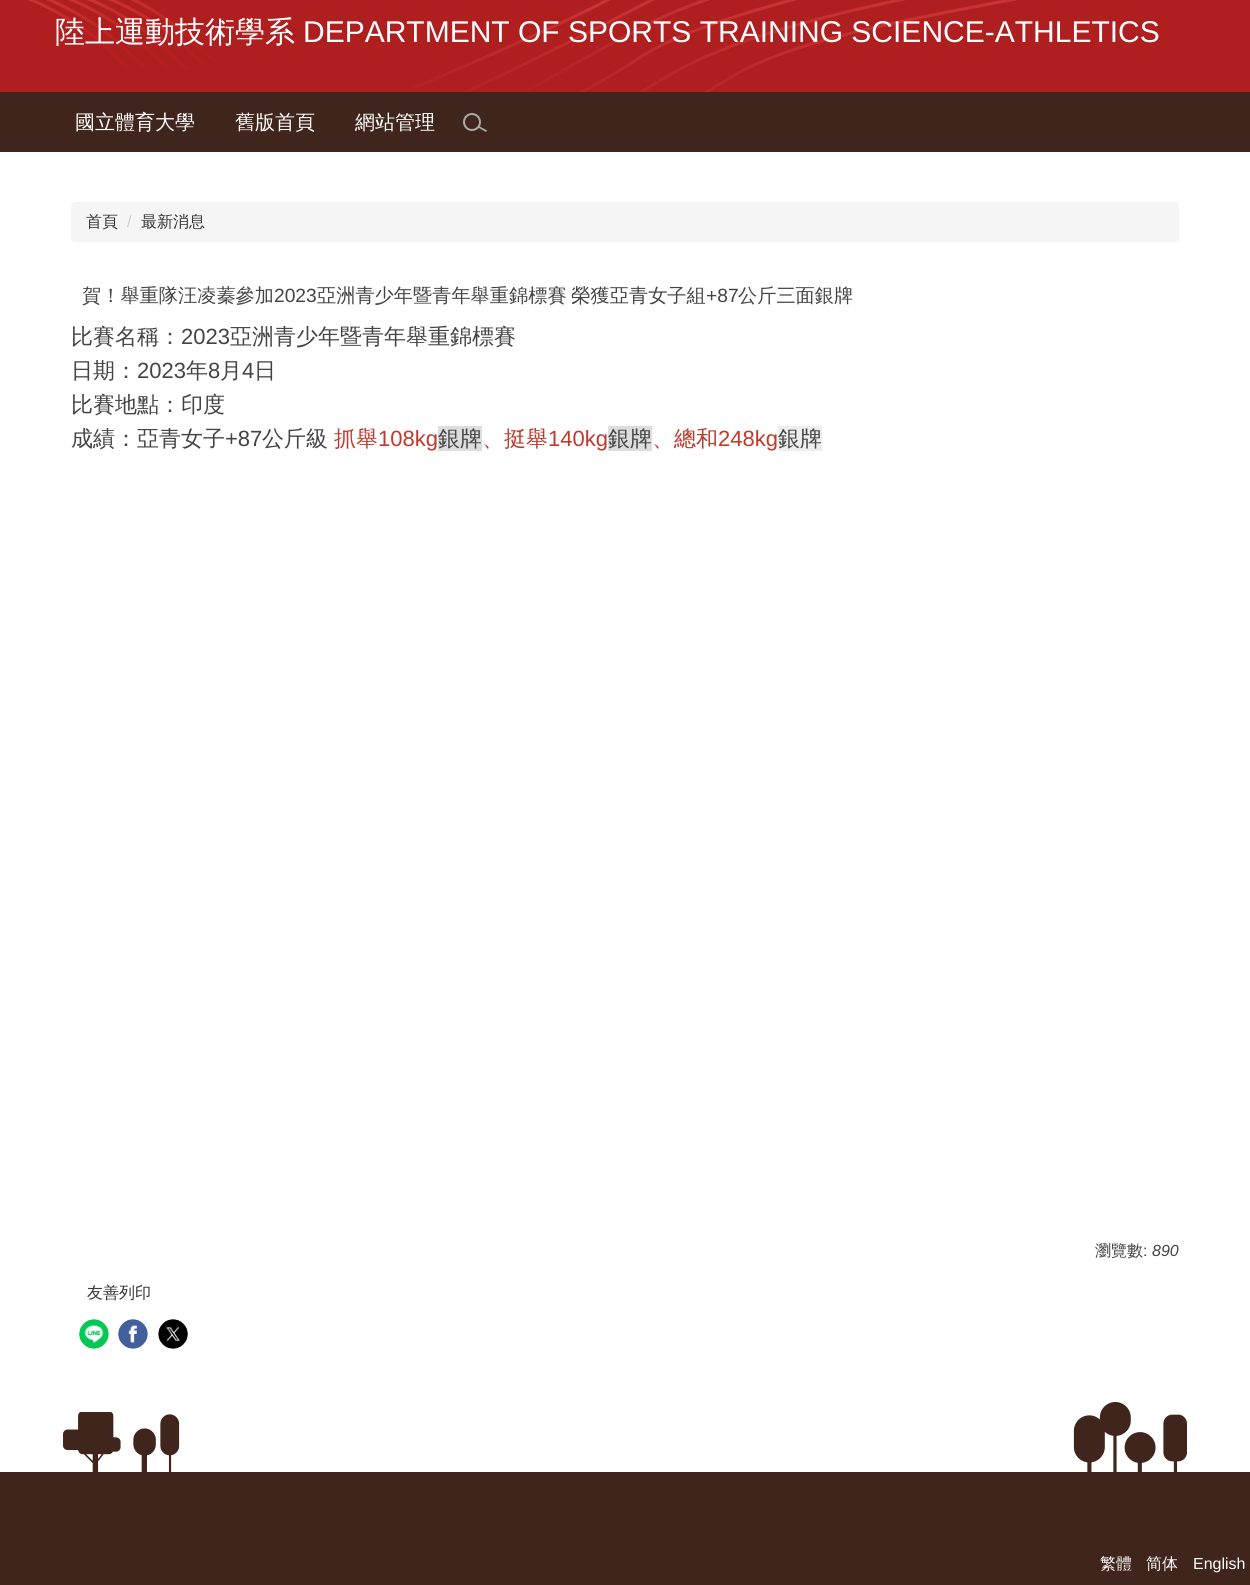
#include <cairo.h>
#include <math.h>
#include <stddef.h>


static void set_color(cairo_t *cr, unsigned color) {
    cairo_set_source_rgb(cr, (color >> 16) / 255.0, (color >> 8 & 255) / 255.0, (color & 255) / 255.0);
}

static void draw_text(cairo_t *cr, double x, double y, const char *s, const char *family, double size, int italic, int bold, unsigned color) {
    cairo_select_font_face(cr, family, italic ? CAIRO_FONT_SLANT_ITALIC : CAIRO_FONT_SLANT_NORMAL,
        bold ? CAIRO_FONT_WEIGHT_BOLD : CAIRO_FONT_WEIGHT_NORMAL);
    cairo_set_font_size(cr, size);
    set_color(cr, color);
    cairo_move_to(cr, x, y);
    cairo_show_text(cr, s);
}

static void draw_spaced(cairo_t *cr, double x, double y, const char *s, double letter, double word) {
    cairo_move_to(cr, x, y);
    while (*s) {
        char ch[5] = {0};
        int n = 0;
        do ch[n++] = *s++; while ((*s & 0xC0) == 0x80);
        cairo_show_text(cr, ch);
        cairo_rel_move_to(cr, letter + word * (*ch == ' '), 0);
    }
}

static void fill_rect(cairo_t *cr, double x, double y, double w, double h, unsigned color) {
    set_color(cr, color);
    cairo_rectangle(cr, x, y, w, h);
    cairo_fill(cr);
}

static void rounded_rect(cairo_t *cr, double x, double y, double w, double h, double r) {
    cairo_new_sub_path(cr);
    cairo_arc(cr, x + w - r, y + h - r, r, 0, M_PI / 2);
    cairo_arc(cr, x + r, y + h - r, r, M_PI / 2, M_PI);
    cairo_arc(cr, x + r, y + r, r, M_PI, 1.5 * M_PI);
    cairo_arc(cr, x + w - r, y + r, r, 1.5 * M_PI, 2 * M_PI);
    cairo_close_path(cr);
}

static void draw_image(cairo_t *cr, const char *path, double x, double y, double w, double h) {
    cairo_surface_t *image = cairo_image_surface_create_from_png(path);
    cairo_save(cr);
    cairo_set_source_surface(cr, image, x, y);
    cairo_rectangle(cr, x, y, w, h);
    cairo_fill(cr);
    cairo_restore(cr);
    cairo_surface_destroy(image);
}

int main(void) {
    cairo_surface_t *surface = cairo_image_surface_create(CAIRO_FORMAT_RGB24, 1250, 1585);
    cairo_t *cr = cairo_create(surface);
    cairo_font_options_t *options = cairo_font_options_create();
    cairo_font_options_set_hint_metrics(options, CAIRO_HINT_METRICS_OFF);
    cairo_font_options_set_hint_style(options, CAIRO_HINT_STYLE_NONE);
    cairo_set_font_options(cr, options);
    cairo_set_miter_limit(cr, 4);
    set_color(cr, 0xFFFFFF);
    cairo_paint(cr);
    fill_rect(cr, 0, 0, 1250, 92, 0xAF1F1F);
    draw_image(cr, "assets/img1.png", 28, 0, 188, 70);
    draw_image(cr, "assets/img2.png", 413, 0, 604, 92);
    draw_text(cr, 55, 42, "陸上運動技術學系", "WenQuanYi Zen Hei Medium", 30, 0, 0, 0xFFFFFF);
    draw_text(cr, 303, 42, "DEPARTMENT OF SPORTS TRAINING SCIENCE-ATHLETICS", "Liberation Sans", 30, 0, 0, 0xFFFFFF);
    fill_rect(cr, 0, 92, 1250, 60, 0x40251C);
    draw_text(cr, 75, 129, "國立體育大學", "WenQuanYi Zen Hei Medium", 20, 0, 0, 0xFFFFFF);
    draw_text(cr, 235, 129, "舊版首頁", "WenQuanYi Zen Hei Medium", 20, 0, 0, 0xFFFFFF);
    draw_text(cr, 355, 129, "網站管理", "WenQuanYi Zen Hei Medium", 20, 0, 0, 0xFFFFFF);
    cairo_new_path(cr);
    cairo_arc(cr, 472, 122, 8, 0, 2 * M_PI);
    set_color(cr, 0xAAAAAA);
    cairo_stroke(cr);
    cairo_new_path(cr);
    cairo_move_to(cr, 479, 126);
    cairo_line_to(cr, 487, 130.5);
    cairo_line_to(cr, 486, 132);
    cairo_line_to(cr, 478, 127.5);
    cairo_close_path(cr);
    cairo_fill(cr);
    set_color(cr, 0xF5F5F5);
    rounded_rect(cr, 71, 202, 1108, 40, 4);
    cairo_fill(cr);
    draw_text(cr, 86, 227, "首頁", "WenQuanYi Zen Hei Medium", 16, 0, 0, 0x333333);
    draw_text(cr, 127, 227, "/", "Liberation Sans", 16, 0, 0, 0xCCCCCC);
    draw_text(cr, 141, 227, "最新消息", "WenQuanYi Zen Hei Medium", 16, 0, 0, 0x333333);
    draw_text(cr, 82, 302, "賀！舉重隊汪凌蓁參加", "WenQuanYi Zen Hei Medium", 19.2, 0, 0, 0x444444);
    draw_text(cr, 274, 302, "2023", "Liberation Sans", 19.2, 0, 0, 0x444444);
    cairo_select_font_face(cr, "WenQuanYi Zen Hei Medium", CAIRO_FONT_SLANT_NORMAL, CAIRO_FONT_WEIGHT_NORMAL);
    draw_spaced(cr, 317, 302, "亞洲青少年暨青年舉重錦標賽 榮獲亞青女子組", 0, -1);
    draw_text(cr, 706, 302, "+87", "Liberation Sans", 19.2, 0, 0, 0x444444);
    draw_text(cr, 738, 302, "公斤三面銀牌", "WenQuanYi Zen Hei Medium", 19.2, 0, 0, 0x444444);
    draw_text(cr, 71, 344, "比賽名稱：", "WenQuanYi Zen Hei Medium", 22, 0, 0, 0x444444);
    draw_text(cr, 181, 344, "2023", "Liberation Sans", 22, 0, 0, 0x444444);
    draw_text(cr, 230, 344, "亞洲青少年暨青年舉重錦標賽", "WenQuanYi Zen Hei Medium", 22, 0, 0, 0x444444);
    draw_text(cr, 71, 378, "日期：", "WenQuanYi Zen Hei Medium", 22, 0, 0, 0x444444);
    draw_text(cr, 137, 378, "2023", "Liberation Sans", 22, 0, 0, 0x444444);
    draw_text(cr, 186, 378, "年", "WenQuanYi Zen Hei Medium", 22, 0, 0, 0x444444);
    draw_text(cr, 208, 378, "8", "Liberation Sans", 22, 0, 0, 0x444444);
    draw_text(cr, 220, 378, "月", "WenQuanYi Zen Hei Medium", 22, 0, 0, 0x444444);
    draw_text(cr, 242, 378, "4", "Liberation Sans", 22, 0, 0, 0x444444);
    draw_text(cr, 254, 378, "日", "WenQuanYi Zen Hei Medium", 22, 0, 0, 0x444444);
    draw_text(cr, 71, 412, "比賽地點：印度", "WenQuanYi Zen Hei Medium", 22, 0, 0, 0x444444);
    draw_text(cr, 71, 446, "成績：亞青女子", "WenQuanYi Zen Hei Medium", 22, 0, 0, 0x444444);
    draw_text(cr, 225, 446, "+87", "Liberation Sans", 22, 0, 0, 0x444444);
    draw_text(cr, 262, 446, "公斤級", "WenQuanYi Zen Hei Medium", 22, 0, 0, 0x444444);
    draw_text(cr, 334, 446, "抓舉", "WenQuanYi Zen Hei Medium", 22, 0, 0, 0xC0392B);
    draw_text(cr, 378, 446, "108kg", "Liberation Sans", 22, 0, 0, 0xC0392B);
    fill_rect(cr, 438, 426, 44, 25, 0xDDDDDD);
    draw_text(cr, 438, 446, "銀牌", "WenQuanYi Zen Hei Medium", 22, 0, 0, 0x444444);
    draw_text(cr, 482, 446, "、挺舉", "WenQuanYi Zen Hei Medium", 22, 0, 0, 0xC0392B);
    draw_text(cr, 548, 446, "140kg", "Liberation Sans", 22, 0, 0, 0xC0392B);
    fill_rect(cr, 608, 426, 44, 25, 0xDDDDDD);
    draw_text(cr, 608, 446, "銀牌", "WenQuanYi Zen Hei Medium", 22, 0, 0, 0x444444);
    draw_text(cr, 652, 446, "、總和", "WenQuanYi Zen Hei Medium", 22, 0, 0, 0xC0392B);
    draw_text(cr, 718, 446, "248kg", "Liberation Sans", 22, 0, 0, 0xC0392B);
    fill_rect(cr, 778, 426, 44, 25, 0xEEEEEE);
    draw_text(cr, 778, 446, "銀牌", "WenQuanYi Zen Hei Medium", 22, 0, 0, 0x444444);
    draw_text(cr, 1095, 1256, "瀏覽數", "WenQuanYi Zen Hei Medium", 16, 0, 0, 0x444444);
    draw_text(cr, 1143, 1256, ":", "Liberation Sans", 16, 0, 0, 0x444444);
    draw_text(cr, 1152, 1256, "890", "Liberation Sans", 16, 1, 0, 0x444444);
    draw_text(cr, 87, 1298, "友善列印", "WenQuanYi Zen Hei Medium", 16, 0, 0, 0x333333);
    draw_image(cr, "assets/img3.png", 79, 1319, 30, 30);
    draw_image(cr, "assets/img4.png", 118, 1319, 30, 30);
    draw_image(cr, "assets/img5.png", 158, 1319, 30, 30);
    fill_rect(cr, 0, 1472, 1250, 113, 0x40251C);
    draw_image(cr, "assets/img6.png", 63, 1412, 117, 60);
    draw_image(cr, "assets/img7.png", 1073, 1402, 114, 70);
    draw_text(cr, 1100, 1569, "繁體", "WenQuanYi Zen Hei Medium", 16, 0, 0, 0xFFFFFF);
    draw_text(cr, 1146, 1569, "简体", "WenQuanYi Zen Hei Medium", 16, 0, 0, 0xFFFFFF);
    draw_text(cr, 1193, 1569, "English", "Liberation Sans", 16, 0, 0, 0xFFFFFF);
    cairo_surface_write_to_png(surface, "output.png");
    cairo_font_options_destroy(options);
    cairo_destroy(cr);
    cairo_surface_destroy(surface);
    return 0;
}
